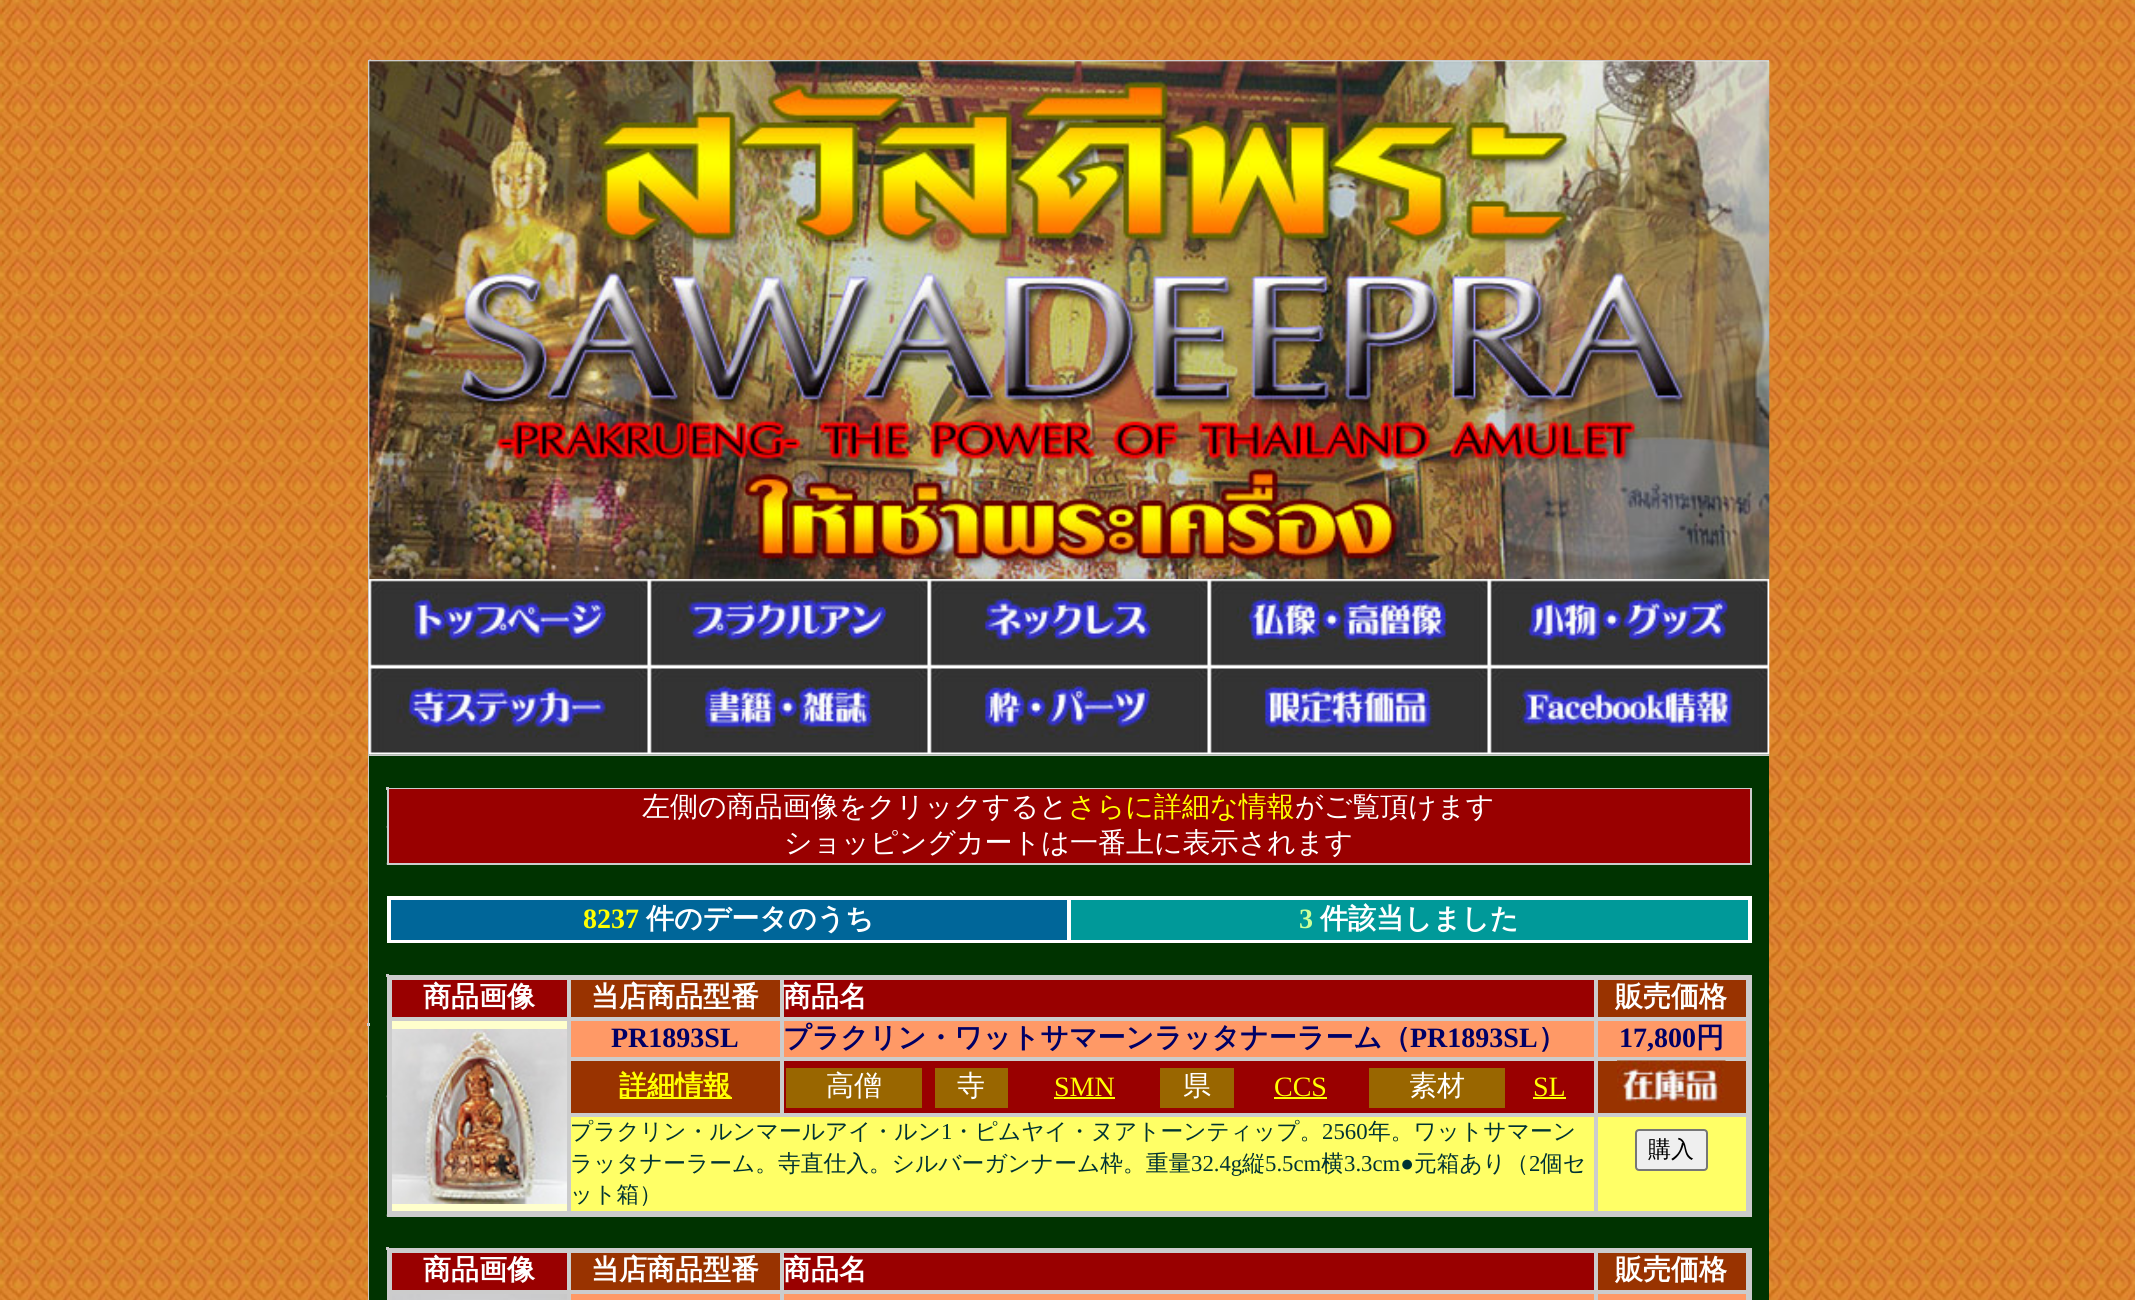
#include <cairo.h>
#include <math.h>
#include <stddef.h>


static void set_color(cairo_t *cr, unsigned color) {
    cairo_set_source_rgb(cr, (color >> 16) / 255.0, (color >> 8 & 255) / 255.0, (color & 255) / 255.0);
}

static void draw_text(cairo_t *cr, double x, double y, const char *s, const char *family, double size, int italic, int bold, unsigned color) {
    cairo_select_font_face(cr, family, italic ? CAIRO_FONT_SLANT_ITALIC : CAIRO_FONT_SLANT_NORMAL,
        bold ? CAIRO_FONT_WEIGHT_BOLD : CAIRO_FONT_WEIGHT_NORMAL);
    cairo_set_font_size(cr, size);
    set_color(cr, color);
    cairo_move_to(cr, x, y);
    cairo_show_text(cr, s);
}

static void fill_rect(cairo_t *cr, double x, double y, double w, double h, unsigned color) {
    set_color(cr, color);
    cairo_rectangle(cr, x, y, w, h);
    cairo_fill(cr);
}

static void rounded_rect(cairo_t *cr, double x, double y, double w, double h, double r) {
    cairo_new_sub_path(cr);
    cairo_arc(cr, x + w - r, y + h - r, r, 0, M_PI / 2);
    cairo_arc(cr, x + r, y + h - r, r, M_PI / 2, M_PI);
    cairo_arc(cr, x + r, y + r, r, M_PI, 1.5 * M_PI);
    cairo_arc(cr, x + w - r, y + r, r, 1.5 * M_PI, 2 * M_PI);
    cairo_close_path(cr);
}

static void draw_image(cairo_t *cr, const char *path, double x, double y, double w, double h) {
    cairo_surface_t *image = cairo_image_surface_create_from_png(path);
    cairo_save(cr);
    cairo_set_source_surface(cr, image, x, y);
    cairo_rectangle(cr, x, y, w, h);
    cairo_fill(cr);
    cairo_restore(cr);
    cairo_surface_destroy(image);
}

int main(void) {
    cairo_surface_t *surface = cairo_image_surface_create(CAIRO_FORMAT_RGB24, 2135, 1300);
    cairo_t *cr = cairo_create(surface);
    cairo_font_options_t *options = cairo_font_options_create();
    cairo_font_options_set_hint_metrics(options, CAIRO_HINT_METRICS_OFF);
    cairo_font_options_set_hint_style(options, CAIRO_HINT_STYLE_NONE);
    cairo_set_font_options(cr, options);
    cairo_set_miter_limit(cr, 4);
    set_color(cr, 0xFFFFFF);
    cairo_paint(cr);
    draw_image(cr, "assets/img1.png", 0, 0, 2135, 1300);
    fill_rect(cr, 368, 60, 1, 1240, 0xCCCCCC);
    fill_rect(cr, 369, 754, 1400, 546, 0x003300);
    fill_rect(cr, 367, 1023, 3, 3, 0xCCCCCC);
    fill_rect(cr, 369, 60, 1400, 1, 0xCCCCCC);
    fill_rect(cr, 369, 61, 1400, 693, 0xFFFFFF);
    draw_image(cr, "assets/img2.png", 369, 59, 2, 3);
    draw_image(cr, "assets/img3.png", 369, 61, 1401, 519);
    draw_image(cr, "assets/img4.png", 369, 579, 281, 87);
    draw_image(cr, "assets/img5.png", 649, 579, 281, 87);
    draw_image(cr, "assets/img6.png", 929, 579, 281, 87);
    draw_image(cr, "assets/img7.png", 1209, 579, 281, 87);
    draw_image(cr, "assets/img8.png", 1489, 579, 281, 88);
    draw_image(cr, "assets/img14.png", 369, 754, 1401, 2);
    draw_image(cr, "assets/img9.png", 369, 667, 281, 88);
    draw_image(cr, "assets/img10.png", 649, 667, 281, 88);
    draw_image(cr, "assets/img11.png", 929, 667, 281, 88);
    draw_image(cr, "assets/img12.png", 1209, 667, 281, 88);
    draw_image(cr, "assets/img13.png", 1489, 666, 281, 89);
    draw_image(cr, "assets/img15.png", 369, 754, 2, 2);
    fill_rect(cr, 387, 788, 1365, 1, 0xCCCCCC);
    fill_rect(cr, 387, 789, 2, 74, 0xCCCCCC);
    fill_rect(cr, 386, 787, 3, 3, 0xCCCCCC);
    draw_image(cr, "assets/img16.png", 386, 826, 1, 2);
    fill_rect(cr, 389, 789, 1361, 74, 0x990000);
    draw_text(cr, 642, 816, "左側の商品画像をクリックすると", "WenQuanYi Zen Hei Medium", 28, 0, 0, 0xFFFFFF);
    draw_text(cr, 1068, 816, "さらに詳細な情報", "WenQuanYi Zen Hei Medium", 28, 0, 0, 0xFFFF00);
    draw_text(cr, 1295, 816, "がご覧頂けます", "WenQuanYi Zen Hei Medium", 28, 0, 0, 0xFFFFFF);
    draw_text(cr, 784, 852, "ショッピングカートは一番上に表示されます", "WenQuanYi Zen Hei Medium", 28, 0, 0, 0xFFFFFF);
    fill_rect(cr, 1750, 789, 2, 74, 0xCCCCCC);
    fill_rect(cr, 387, 863, 1365, 2, 0xCCCCCC);
    draw_image(cr, "assets/img17.png", 386, 862, 1, 3);
    cairo_rectangle(cr, 388, 897, 1363, 45);
    set_color(cr, 0xFFFFFF);
    cairo_stroke(cr);
    set_color(cr, 0x006699);
    cairo_rectangle(cr, 390, 899, 678, 42);
    cairo_fill_preserve(cr);
    set_color(cr, 0xFFFFFF);
    cairo_stroke(cr);
    draw_text(cr, 583, 928, "8237", "Liberation Serif", 28, 0, 1, 0xFFFF00);
    draw_text(cr, 646, 928, "件のデータのうち", "WenQuanYi Zen Hei", 28, 0, 1, 0xFFFFFF);
    set_color(cr, 0x009999);
    cairo_rectangle(cr, 1070, 899, 679, 42);
    cairo_fill_preserve(cr);
    set_color(cr, 0xFFFFFF);
    cairo_stroke(cr);
    draw_text(cr, 1299, 928, "3", "Liberation Serif", 28, 0, 1, 0xCCFF99);
    draw_text(cr, 1320, 928, "件該当しました", "WenQuanYi Zen Hei", 28, 0, 1, 0xFFFFFF);
    fill_rect(cr, 387, 975, 1365, 2, 0xCCCCCC);
    fill_rect(cr, 386, 974, 3, 3, 0xCCCCCC);
    fill_rect(cr, 387, 977, 2, 238, 0xCCCCCC);
    draw_image(cr, "assets/img18.png", 386, 1095, 1, 3);
    cairo_rectangle(cr, 390, 978, 1359, 236);
    cairo_stroke(cr);
    set_color(cr, 0x990000);
    cairo_rectangle(cr, 391, 979, 177, 39);
    cairo_fill_preserve(cr);
    set_color(cr, 0xCCCCCC);
    cairo_stroke(cr);
    draw_text(cr, 423, 1006, "商品画像", "WenQuanYi Zen Hei", 28, 0, 1, 0xFFFFFF);
    set_color(cr, 0x993300);
    cairo_rectangle(cr, 570, 979, 211, 39);
    cairo_fill_preserve(cr);
    set_color(cr, 0xCCCCCC);
    cairo_stroke(cr);
    draw_text(cr, 591, 1006, "当店商品型番", "WenQuanYi Zen Hei", 28, 0, 1, 0xFFFFFF);
    set_color(cr, 0x990000);
    cairo_rectangle(cr, 783, 979, 812, 39);
    cairo_fill_preserve(cr);
    set_color(cr, 0xCCCCCC);
    cairo_stroke(cr);
    draw_text(cr, 783, 1006, "商品名", "WenQuanYi Zen Hei", 28, 0, 1, 0xFFFFFF);
    set_color(cr, 0x993300);
    cairo_rectangle(cr, 1597, 979, 150, 39);
    cairo_fill_preserve(cr);
    set_color(cr, 0xCCCCCC);
    cairo_stroke(cr);
    draw_text(cr, 1615, 1006, "販売価格", "WenQuanYi Zen Hei", 28, 0, 1, 0xFFFFFF);
    set_color(cr, 0xFFFFCC);
    cairo_rectangle(cr, 391, 1020, 177, 192);
    cairo_fill_preserve(cr);
    set_color(cr, 0xCCCCCC);
    cairo_stroke(cr);
    draw_image(cr, "assets/img19.png", 392, 1029, 175, 175);
    set_color(cr, 0xFF9966);
    cairo_rectangle(cr, 570, 1020, 211, 38);
    cairo_fill_preserve(cr);
    set_color(cr, 0xCCCCCC);
    cairo_stroke(cr);
    draw_text(cr, 611, 1047, "PR1893SL", "Liberation Serif", 28, 0, 1, 0x000066);
    set_color(cr, 0xFF9966);
    cairo_rectangle(cr, 783, 1020, 812, 38);
    cairo_fill_preserve(cr);
    set_color(cr, 0xCCCCCC);
    cairo_stroke(cr);
    draw_text(cr, 783, 1047, "プラクリン・ワットサマーンラッタナーラーム（", "WenQuanYi Zen Hei", 28, 0, 1, 0x000066);
    draw_text(cr, 1410, 1047, "PR1893SL", "Liberation Serif", 28, 0, 1, 0x000066);
    draw_text(cr, 1538, 1047, "）", "WenQuanYi Zen Hei", 28, 0, 1, 0x000066);
    set_color(cr, 0xFF9966);
    cairo_rectangle(cr, 1597, 1020, 150, 38);
    cairo_fill_preserve(cr);
    set_color(cr, 0xCCCCCC);
    cairo_stroke(cr);
    draw_text(cr, 1619, 1047, "17,800", "Liberation Serif", 28, 0, 1, 0x000066);
    draw_text(cr, 1696, 1047, "円", "WenQuanYi Zen Hei", 28, 0, 1, 0x000066);
    set_color(cr, 0x993300);
    cairo_rectangle(cr, 570, 1060, 211, 54);
    cairo_fill_preserve(cr);
    set_color(cr, 0xCCCCCC);
    cairo_stroke(cr);
    fill_rect(cr, 620, 1097, 112, 2, 0xFFFF00);
    draw_text(cr, 619, 1095, "詳細情報", "WenQuanYi Zen Hei", 28, 0, 1, 0xFFFF00);
    set_color(cr, 0x990000);
    cairo_rectangle(cr, 783, 1060, 812, 54);
    cairo_fill_preserve(cr);
    set_color(cr, 0xCCCCCC);
    cairo_stroke(cr);
    fill_rect(cr, 786, 1068, 136, 40, 0x996600);
    draw_text(cr, 826, 1095, "高僧", "WenQuanYi Zen Hei Medium", 28, 0, 0, 0xFFFFFF);
    fill_rect(cr, 935, 1068, 73, 40, 0x996600);
    draw_text(cr, 957, 1095, "寺", "WenQuanYi Zen Hei Medium", 28, 0, 0, 0xFFFFFF);
    draw_text(cr, 1054, 1096, "SMN", "Liberation Serif", 28, 0, 0, 0xFFFF00);
    fill_rect(cr, 1054, 1097, 61, 2, 0xFFFF00);
    fill_rect(cr, 1160, 1068, 74, 40, 0x996600);
    draw_text(cr, 1183, 1095, "県", "WenQuanYi Zen Hei Medium", 28, 0, 0, 0xFFFFFF);
    draw_text(cr, 1274, 1096, "CCS", "Liberation Serif", 28, 0, 0, 0xFFFF00);
    fill_rect(cr, 1274, 1097, 53, 2, 0xFFFF00);
    fill_rect(cr, 1369, 1068, 136, 40, 0x996600);
    draw_text(cr, 1409, 1095, "素材", "WenQuanYi Zen Hei Medium", 28, 0, 0, 0xFFFFFF);
    draw_text(cr, 1533, 1096, "SL", "Liberation Serif", 28, 0, 0, 0xFFFF00);
    fill_rect(cr, 1533, 1097, 33, 2, 0xFFFF00);
    set_color(cr, 0x993300);
    cairo_rectangle(cr, 1597, 1060, 150, 54);
    cairo_fill_preserve(cr);
    set_color(cr, 0xCCCCCC);
    cairo_stroke(cr);
    draw_image(cr, "assets/img20.png", 1617, 1060, 109, 43);
    set_color(cr, 0xFFFF66);
    cairo_rectangle(cr, 570, 1116, 1025, 96);
    cairo_fill_preserve(cr);
    set_color(cr, 0xCCCCCC);
    cairo_stroke(cr);
    draw_text(cr, 570, 1139, "プラクリン・ルンマールアイ・ルン", "WenQuanYi Zen Hei Medium", 22.75, 0, 0, 0x003333);
    draw_text(cr, 941, 1139, "1", "Liberation Serif", 22.75, 0, 0, 0x003333);
    draw_text(cr, 952, 1139, "・ピムヤイ・ヌアトーンティップ。", "WenQuanYi Zen Hei Medium", 22.75, 0, 0, 0x003333);
    draw_text(cr, 1322, 1139, "2560", "Liberation Serif", 22.75, 0, 0, 0x003333);
    draw_text(cr, 1368, 1139, "年。ワットサマーン", "WenQuanYi Zen Hei Medium", 22.75, 0, 0, 0x003333);
    draw_text(cr, 570, 1171, "ラッタナーラーム。寺直仕入。シルバーガンナーム枠。重量", "WenQuanYi Zen Hei Medium", 22.75, 0, 0, 0x003333);
    draw_text(cr, 1191, 1171, "32.4g", "Liberation Serif", 22.75, 0, 0, 0x003333);
    draw_text(cr, 1242, 1171, "縦", "WenQuanYi Zen Hei Medium", 22.75, 0, 0, 0x003333);
    draw_text(cr, 1265, 1171, "5.5cm", "Liberation Serif", 22.75, 0, 0, 0x003333);
    draw_text(cr, 1321, 1171, "横", "WenQuanYi Zen Hei Medium", 22.75, 0, 0, 0x003333);
    draw_text(cr, 1344, 1171, "3.3cm●", "Liberation Serif", 22.75, 0, 0, 0x003333);
    draw_text(cr, 1414, 1171, "元箱あり（", "WenQuanYi Zen Hei Medium", 22.75, 0, 0, 0x003333);
    draw_text(cr, 1529, 1171, "2", "Liberation Serif", 22.75, 0, 0, 0x003333);
    draw_text(cr, 1540, 1171, "個セ", "WenQuanYi Zen Hei Medium", 22.75, 0, 0, 0x003333);
    draw_text(cr, 570, 1202, "ット箱）", "WenQuanYi Zen Hei Medium", 22.75, 0, 0, 0x003333);
    set_color(cr, 0xFFFF66);
    cairo_rectangle(cr, 1597, 1116, 150, 96);
    cairo_fill_preserve(cr);
    set_color(cr, 0xCCCCCC);
    cairo_stroke(cr);
    set_color(cr, 0xEFEFEF);
    rounded_rect(cr, 1636, 1130, 71, 40, 3);
    cairo_fill_preserve(cr);
    set_color(cr, 0x767676);
    cairo_stroke(cr);
    draw_text(cr, 1648, 1157, "購入", "WenQuanYi Zen Hei Medium", 23, 0, 0, 0x000000);
    fill_rect(cr, 1750, 977, 2, 238, 0xCCCCCC);
    fill_rect(cr, 387, 1215, 1365, 2, 0xCCCCCC);
    draw_image(cr, "assets/img18.png", 386, 1214, 1, 3);
    fill_rect(cr, 387, 1248, 1365, 2, 0xCCCCCC);
    fill_rect(cr, 386, 1247, 3, 3, 0xCCCCCC);
    fill_rect(cr, 387, 1250, 2, 50, 0xCCCCCC);
    cairo_rectangle(cr, 390, 1251, 1359, 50);
    cairo_stroke(cr);
    set_color(cr, 0x990000);
    cairo_rectangle(cr, 391, 1252, 177, 39);
    cairo_fill_preserve(cr);
    set_color(cr, 0xCCCCCC);
    cairo_stroke(cr);
    draw_text(cr, 423, 1279, "商品画像", "WenQuanYi Zen Hei", 28, 0, 1, 0xFFFFFF);
    set_color(cr, 0x993300);
    cairo_rectangle(cr, 570, 1252, 211, 39);
    cairo_fill_preserve(cr);
    set_color(cr, 0xCCCCCC);
    cairo_stroke(cr);
    draw_text(cr, 591, 1279, "当店商品型番", "WenQuanYi Zen Hei", 28, 0, 1, 0xFFFFFF);
    set_color(cr, 0x990000);
    cairo_rectangle(cr, 783, 1252, 812, 39);
    cairo_fill_preserve(cr);
    set_color(cr, 0xCCCCCC);
    cairo_stroke(cr);
    draw_text(cr, 783, 1279, "商品名", "WenQuanYi Zen Hei", 28, 0, 1, 0xFFFFFF);
    set_color(cr, 0x993300);
    cairo_rectangle(cr, 1597, 1252, 150, 39);
    cairo_fill_preserve(cr);
    set_color(cr, 0xCCCCCC);
    cairo_stroke(cr);
    draw_text(cr, 1615, 1279, "販売価格", "WenQuanYi Zen Hei", 28, 0, 1, 0xFFFFFF);
    cairo_rectangle(cr, 391, 1293, 177, 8);
    set_color(cr, 0xCCCCCC);
    cairo_stroke(cr);
    draw_image(cr, "assets/img21.png", 392, 1294, 175, 6);
    set_color(cr, 0xFF9966);
    cairo_rectangle(cr, 570, 1293, 211, 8);
    cairo_fill_preserve(cr);
    set_color(cr, 0xCCCCCC);
    cairo_stroke(cr);
    set_color(cr, 0xFF9966);
    cairo_rectangle(cr, 783, 1293, 812, 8);
    cairo_fill_preserve(cr);
    set_color(cr, 0xCCCCCC);
    cairo_stroke(cr);
    set_color(cr, 0xFF9966);
    cairo_rectangle(cr, 1597, 1293, 150, 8);
    cairo_fill_preserve(cr);
    set_color(cr, 0xCCCCCC);
    cairo_stroke(cr);
    fill_rect(cr, 1750, 1250, 2, 50, 0xCCCCCC);
    cairo_surface_write_to_png(surface, "output.png");
    cairo_font_options_destroy(options);
    cairo_destroy(cr);
    cairo_surface_destroy(surface);
    return 0;
}
